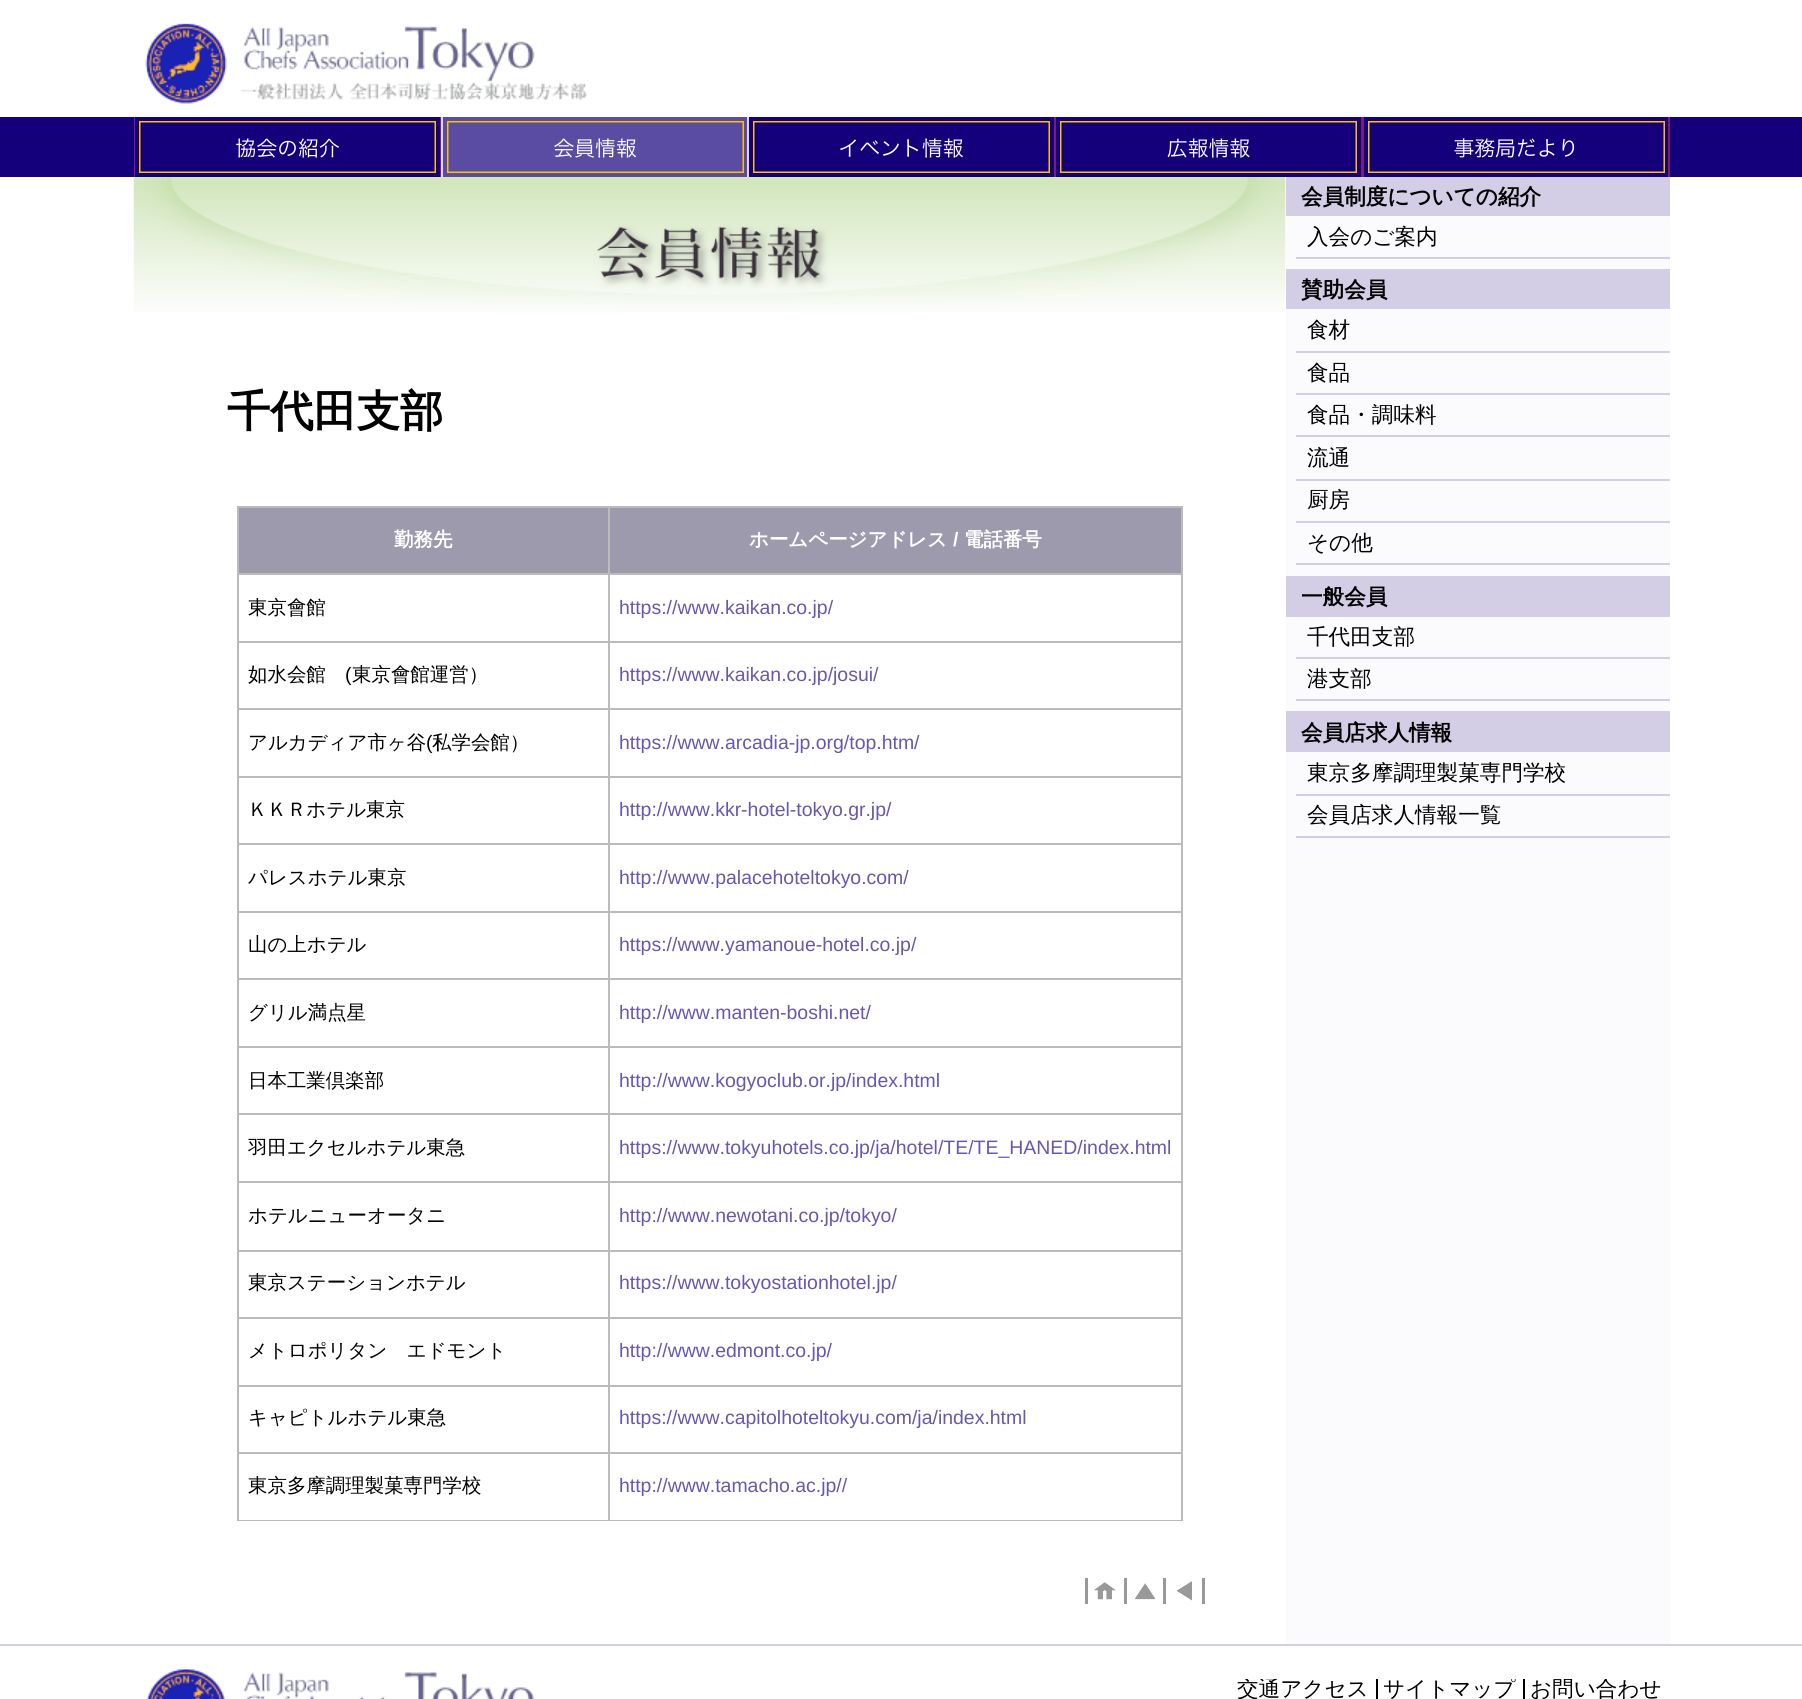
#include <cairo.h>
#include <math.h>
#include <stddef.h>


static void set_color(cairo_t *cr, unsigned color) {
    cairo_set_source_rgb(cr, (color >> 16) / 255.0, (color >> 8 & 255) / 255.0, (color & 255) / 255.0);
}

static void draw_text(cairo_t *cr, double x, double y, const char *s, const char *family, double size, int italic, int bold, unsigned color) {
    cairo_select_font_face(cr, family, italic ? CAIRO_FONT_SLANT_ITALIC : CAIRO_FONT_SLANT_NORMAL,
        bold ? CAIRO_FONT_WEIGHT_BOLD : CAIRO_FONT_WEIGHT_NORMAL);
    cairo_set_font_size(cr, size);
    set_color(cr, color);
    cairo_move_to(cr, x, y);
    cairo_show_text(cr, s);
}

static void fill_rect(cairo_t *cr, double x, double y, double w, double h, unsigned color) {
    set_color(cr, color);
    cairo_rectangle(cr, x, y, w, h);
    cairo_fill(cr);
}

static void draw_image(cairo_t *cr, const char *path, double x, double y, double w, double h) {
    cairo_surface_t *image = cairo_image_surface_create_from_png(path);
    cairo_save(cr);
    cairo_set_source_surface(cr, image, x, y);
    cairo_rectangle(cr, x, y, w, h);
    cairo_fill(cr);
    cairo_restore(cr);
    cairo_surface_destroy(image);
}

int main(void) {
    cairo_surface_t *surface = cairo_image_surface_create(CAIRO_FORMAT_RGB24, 1802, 1699);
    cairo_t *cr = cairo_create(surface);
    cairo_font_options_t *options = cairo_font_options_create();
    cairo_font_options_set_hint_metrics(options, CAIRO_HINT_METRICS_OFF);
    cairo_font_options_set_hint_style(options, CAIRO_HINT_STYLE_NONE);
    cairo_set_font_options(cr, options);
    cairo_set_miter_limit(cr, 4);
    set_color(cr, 0xFFFFFF);
    cairo_paint(cr);
    draw_image(cr, "assets/img1.png", 145, 23, 442, 81);
    fill_rect(cr, 0, 117, 1802, 60, 0x15007C);
    fill_rect(cr, 134, 117, 307, 60, 0x7E1A78);
    draw_image(cr, "assets/img2.png", 135, 117, 305, 60);
    fill_rect(cr, 441, 117, 308, 60, 0xE5D2EC);
    draw_image(cr, "assets/img3.png", 443, 117, 304, 60);
    fill_rect(cr, 1054, 117, 616, 60, 0x7E1A78);
    draw_image(cr, "assets/img4.png", 749, 117, 305, 60);
    draw_image(cr, "assets/img5.png", 1056, 117, 305, 60);
    draw_image(cr, "assets/img6.png", 1364, 117, 304, 60);
    draw_image(cr, "assets/img7.png", 133, 177, 1153, 135);
    draw_text(cr, 227, 426, "千代田支部", "WenQuanYi Zen Hei", 43.25, 0, 1, 0x000000);
    fill_rect(cr, 237, 506, 945, 2, 0xBBBBBB);
    fill_rect(cr, 1181, 506, 2, 1015, 0xBBBBBB);
    fill_rect(cr, 237, 1520, 945, 1, 0xBBBBBB);
    fill_rect(cr, 237, 506, 2, 1015, 0xBBBBBB);
    fill_rect(cr, 239, 508, 369, 65, 0x9E9AAD);
    draw_text(cr, 394, 546, "勤務先", "WenQuanYi Zen Hei", 19.45, 0, 1, 0xFFFFFF);
    fill_rect(cr, 610, 508, 571, 65, 0x9E9AAD);
    fill_rect(cr, 608, 573, 574, 2, 0xBBBBBB);
    fill_rect(cr, 608, 641, 574, 2, 0xBBBBBB);
    fill_rect(cr, 608, 708, 574, 2, 0xBBBBBB);
    fill_rect(cr, 608, 776, 574, 2, 0xBBBBBB);
    fill_rect(cr, 608, 843, 574, 2, 0xBBBBBB);
    fill_rect(cr, 608, 911, 574, 2, 0xBBBBBB);
    fill_rect(cr, 608, 978, 574, 2, 0xBBBBBB);
    fill_rect(cr, 608, 1046, 574, 2, 0xBBBBBB);
    fill_rect(cr, 608, 1113, 574, 2, 0xBBBBBB);
    fill_rect(cr, 608, 1181, 574, 2, 0xBBBBBB);
    fill_rect(cr, 608, 1250, 574, 2, 0xBBBBBB);
    fill_rect(cr, 608, 1317, 574, 2, 0xBBBBBB);
    fill_rect(cr, 608, 1385, 574, 2, 0xBBBBBB);
    fill_rect(cr, 608, 1452, 574, 2, 0xBBBBBB);
    fill_rect(cr, 608, 1452, 2, 69, 0xBBBBBB);
    fill_rect(cr, 237, 1452, 372, 2, 0xBBBBBB);
    fill_rect(cr, 608, 1385, 2, 69, 0xBBBBBB);
    fill_rect(cr, 237, 1385, 372, 2, 0xBBBBBB);
    fill_rect(cr, 608, 1317, 2, 69, 0xBBBBBB);
    fill_rect(cr, 237, 1317, 372, 2, 0xBBBBBB);
    fill_rect(cr, 608, 1250, 2, 69, 0xBBBBBB);
    fill_rect(cr, 237, 1250, 372, 2, 0xBBBBBB);
    fill_rect(cr, 608, 1181, 2, 70, 0xBBBBBB);
    fill_rect(cr, 237, 1181, 372, 2, 0xBBBBBB);
    fill_rect(cr, 608, 1113, 2, 69, 0xBBBBBB);
    fill_rect(cr, 237, 1113, 372, 2, 0xBBBBBB);
    fill_rect(cr, 608, 1046, 2, 69, 0xBBBBBB);
    fill_rect(cr, 237, 1046, 372, 2, 0xBBBBBB);
    fill_rect(cr, 608, 978, 2, 69, 0xBBBBBB);
    fill_rect(cr, 237, 978, 372, 2, 0xBBBBBB);
    fill_rect(cr, 608, 911, 2, 69, 0xBBBBBB);
    fill_rect(cr, 237, 911, 372, 2, 0xBBBBBB);
    fill_rect(cr, 608, 843, 2, 69, 0xBBBBBB);
    fill_rect(cr, 237, 843, 372, 2, 0xBBBBBB);
    fill_rect(cr, 608, 776, 2, 69, 0xBBBBBB);
    fill_rect(cr, 237, 776, 372, 2, 0xBBBBBB);
    fill_rect(cr, 608, 708, 2, 69, 0xBBBBBB);
    fill_rect(cr, 237, 708, 372, 2, 0xBBBBBB);
    fill_rect(cr, 608, 641, 2, 69, 0xBBBBBB);
    fill_rect(cr, 237, 641, 372, 2, 0xBBBBBB);
    fill_rect(cr, 608, 573, 2, 69, 0xBBBBBB);
    fill_rect(cr, 237, 573, 372, 2, 0xBBBBBB);
    fill_rect(cr, 608, 506, 2, 69, 0xBBBBBB);
    draw_text(cr, 749, 546, "ホームページアドレス", "WenQuanYi Zen Hei", 19.45, 0, 1, 0xFFFFFF);
    draw_text(cr, 953, 546, "/", "Liberation Sans", 19.45, 0, 1, 0xFFFFFF);
    draw_text(cr, 964, 546, "電話番号", "WenQuanYi Zen Hei", 19.45, 0, 1, 0xFFFFFF);
    draw_text(cr, 248, 614, "東京會館", "WenQuanYi Zen Hei Medium", 19.45, 0, 0, 0x000000);
    draw_text(cr, 619, 614, "https://www.kaikan.co.jp/", "Liberation Sans", 19.45, 0, 0, 0x6658AD);
    draw_text(cr, 248, 681, "如水会館", "WenQuanYi Zen Hei Medium", 19.45, 0, 0, 0x000000);
    draw_text(cr, 345, 681, "(", "Liberation Sans", 19.45, 0, 0, 0x000000);
    draw_text(cr, 352, 681, "東京會館運営）", "WenQuanYi Zen Hei Medium", 19.45, 0, 0, 0x000000);
    draw_text(cr, 619, 681, "https://www.kaikan.co.jp/josui/", "Liberation Sans", 19.45, 0, 0, 0x6658AD);
    draw_text(cr, 248, 749, "アルカディア市ヶ谷", "WenQuanYi Zen Hei Medium", 19.45, 0, 0, 0x000000);
    draw_text(cr, 426, 749, "(", "Liberation Sans", 19.45, 0, 0, 0x000000);
    draw_text(cr, 432, 749, "私学会館）", "WenQuanYi Zen Hei Medium", 19.45, 0, 0, 0x000000);
    draw_text(cr, 619, 749, "https://www.arcadia-jp.org/top.htm/", "Liberation Sans", 19.45, 0, 0, 0x6658AD);
    draw_text(cr, 248, 816, "ＫＫＲホテル東京", "WenQuanYi Zen Hei Medium", 19.45, 0, 0, 0x000000);
    draw_text(cr, 619, 816, "http://www.kkr-hotel-tokyo.gr.jp/", "Liberation Sans", 19.45, 0, 0, 0x6658AD);
    draw_text(cr, 248, 884, "パレスホテル東京", "WenQuanYi Zen Hei Medium", 19.45, 0, 0, 0x000000);
    draw_text(cr, 619, 884, "http://www.palacehoteltokyo.com/", "Liberation Sans", 19.45, 0, 0, 0x6658AD);
    draw_text(cr, 248, 951, "山の上ホテル", "WenQuanYi Zen Hei Medium", 19.45, 0, 0, 0x000000);
    draw_text(cr, 619, 951, "https://www.yamanoue-hotel.co.jp/", "Liberation Sans", 19.45, 0, 0, 0x6658AD);
    draw_text(cr, 248, 1019, "グリル満点星", "WenQuanYi Zen Hei Medium", 19.45, 0, 0, 0x000000);
    draw_text(cr, 619, 1019, "http://www.manten-boshi.net/", "Liberation Sans", 19.45, 0, 0, 0x6658AD);
    draw_text(cr, 248, 1087, "日本工業倶楽部", "WenQuanYi Zen Hei Medium", 19.45, 0, 0, 0x000000);
    draw_text(cr, 619, 1087, "http://www.kogyoclub.or.jp/index.html", "Liberation Sans", 19.45, 0, 0, 0x6658AD);
    draw_text(cr, 248, 1154, "羽田エクセルホテル東急", "WenQuanYi Zen Hei Medium", 19.45, 0, 0, 0x000000);
    draw_text(cr, 619, 1154, "https://www.tokyuhotels.co.jp/ja/hotel/TE/TE_HANED/index.html", "Liberation Sans", 19.45, 0, 0, 0x6658AD);
    draw_text(cr, 248, 1222, "ホテルニューオータニ", "WenQuanYi Zen Hei Medium", 19.45, 0, 0, 0x000000);
    draw_text(cr, 619, 1222, "http://www.newotani.co.jp/tokyo/", "Liberation Sans", 19.45, 0, 0, 0x6658AD);
    draw_text(cr, 248, 1289, "東京ステーションホテル", "WenQuanYi Zen Hei Medium", 19.45, 0, 0, 0x000000);
    draw_text(cr, 619, 1289, "https://www.tokyostationhotel.jp/", "Liberation Sans", 19.45, 0, 0, 0x6658AD);
    draw_text(cr, 248, 1357, "メトロポリタン　エドモント", "WenQuanYi Zen Hei Medium", 19.45, 0, 0, 0x000000);
    draw_text(cr, 619, 1357, "http://www.edmont.co.jp/", "Liberation Sans", 19.45, 0, 0, 0x6658AD);
    draw_text(cr, 248, 1424, "キャピトルホテル東急", "WenQuanYi Zen Hei Medium", 19.45, 0, 0, 0x000000);
    draw_text(cr, 619, 1424, "https://www.capitolhoteltokyu.com/ja/index.html", "Liberation Sans", 19.45, 0, 0, 0x6658AD);
    draw_text(cr, 248, 1492, "東京多摩調理製菓専門学校", "WenQuanYi Zen Hei Medium", 19.45, 0, 0, 0x000000);
    draw_text(cr, 619, 1492, "http://www.tamacho.ac.jp//", "Liberation Sans", 19.45, 0, 0, 0x6658AD);
    fill_rect(cr, 1124, 1578, 3, 26, 0x999999);
    fill_rect(cr, 1085, 1578, 3, 26, 0x999999);
    draw_image(cr, "assets/img8.png", 1093, 1582, 23, 18);
    fill_rect(cr, 1163, 1578, 3, 26, 0x999999);
    draw_image(cr, "assets/img9.png", 1134, 1583, 22, 17);
    fill_rect(cr, 1202, 1578, 3, 26, 0x999999);
    draw_image(cr, "assets/img10.png", 1176, 1581, 16, 20);
    fill_rect(cr, 1286, 216, 384, 1428, 0xFBFAFD);
    fill_rect(cr, 1286, 177, 384, 39, 0xD3CDE6);
    draw_text(cr, 1301, 204, "会員制度についての紹介", "WenQuanYi Zen Hei", 21.6, 0, 1, 0x000000);
    fill_rect(cr, 1296, 257, 374, 2, 0xD3CDE6);
    draw_text(cr, 1307, 244, "入会のご案内", "WenQuanYi Zen Hei Medium", 21.6, 0, 0, 0x000000);
    fill_rect(cr, 1286, 269, 384, 40, 0xD3CDE6);
    draw_text(cr, 1301, 297, "賛助会員", "WenQuanYi Zen Hei", 21.6, 0, 1, 0x000000);
    fill_rect(cr, 1296, 351, 374, 2, 0xD3CDE6);
    draw_text(cr, 1307, 337, "食材", "WenQuanYi Zen Hei Medium", 21.6, 0, 0, 0x000000);
    fill_rect(cr, 1296, 393, 374, 2, 0xD3CDE6);
    draw_text(cr, 1307, 380, "食品", "WenQuanYi Zen Hei Medium", 21.6, 0, 0, 0x000000);
    fill_rect(cr, 1296, 435, 374, 2, 0xD3CDE6);
    draw_text(cr, 1307, 422, "食品・調味料", "WenQuanYi Zen Hei Medium", 21.6, 0, 0, 0x000000);
    fill_rect(cr, 1296, 479, 374, 2, 0xD3CDE6);
    draw_text(cr, 1307, 465, "流通", "WenQuanYi Zen Hei Medium", 21.6, 0, 0, 0x000000);
    fill_rect(cr, 1296, 521, 374, 2, 0xD3CDE6);
    draw_text(cr, 1307, 507, "厨房", "WenQuanYi Zen Hei Medium", 21.6, 0, 0, 0x000000);
    fill_rect(cr, 1296, 563, 374, 2, 0xD3CDE6);
    draw_text(cr, 1307, 550, "その他", "WenQuanYi Zen Hei Medium", 21.6, 0, 0, 0x000000);
    fill_rect(cr, 1286, 576, 384, 41, 0xD3CDE6);
    draw_text(cr, 1301, 604, "一般会員", "WenQuanYi Zen Hei", 21.6, 0, 1, 0x000000);
    fill_rect(cr, 1296, 657, 374, 2, 0xD3CDE6);
    draw_text(cr, 1307, 644, "千代田支部", "WenQuanYi Zen Hei Medium", 21.6, 0, 0, 0x000000);
    fill_rect(cr, 1296, 699, 374, 2, 0xD3CDE6);
    draw_text(cr, 1307, 686, "港支部", "WenQuanYi Zen Hei Medium", 21.6, 0, 0, 0x000000);
    fill_rect(cr, 1286, 711, 384, 41, 0xD3CDE6);
    draw_text(cr, 1301, 740, "会員店求人情報", "WenQuanYi Zen Hei", 21.6, 0, 1, 0x000000);
    fill_rect(cr, 1296, 794, 374, 2, 0xD3CDE6);
    draw_text(cr, 1307, 780, "東京多摩調理製菓専門学校", "WenQuanYi Zen Hei Medium", 21.6, 0, 0, 0x000000);
    fill_rect(cr, 1296, 836, 374, 2, 0xD3CDE6);
    draw_text(cr, 1307, 822, "会員店求人情報一覧", "WenQuanYi Zen Hei Medium", 21.6, 0, 0, 0x000000);
    fill_rect(cr, 0, 1644, 1802, 2, 0xD3CDE6);
    draw_image(cr, "assets/img11.png", 146, 1669, 389, 30);
    fill_rect(cr, 1376, 1679, 2, 20, 0x000000);
    cairo_save(cr);
    cairo_rectangle(cr, 903, 1679, 765, 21);
    cairo_clip(cr);
    draw_text(cr, 1237, 1696, "交通アクセス", "WenQuanYi Zen Hei Medium", 21.6, 0, 0, 0x000000);
    cairo_restore(cr);
    fill_rect(cr, 1523, 1679, 2, 20, 0x000000);
    cairo_save(cr);
    cairo_rectangle(cr, 903, 1679, 765, 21);
    cairo_clip(cr);
    draw_text(cr, 1383, 1696, "サイトマップ", "WenQuanYi Zen Hei Medium", 21.6, 0, 0, 0x000000);
    draw_text(cr, 1530, 1696, "お問い合わせ", "WenQuanYi Zen Hei Medium", 21.6, 0, 0, 0x000000);
    cairo_restore(cr);
    cairo_surface_write_to_png(surface, "output.png");
    cairo_font_options_destroy(options);
    cairo_destroy(cr);
    cairo_surface_destroy(surface);
    return 0;
}
